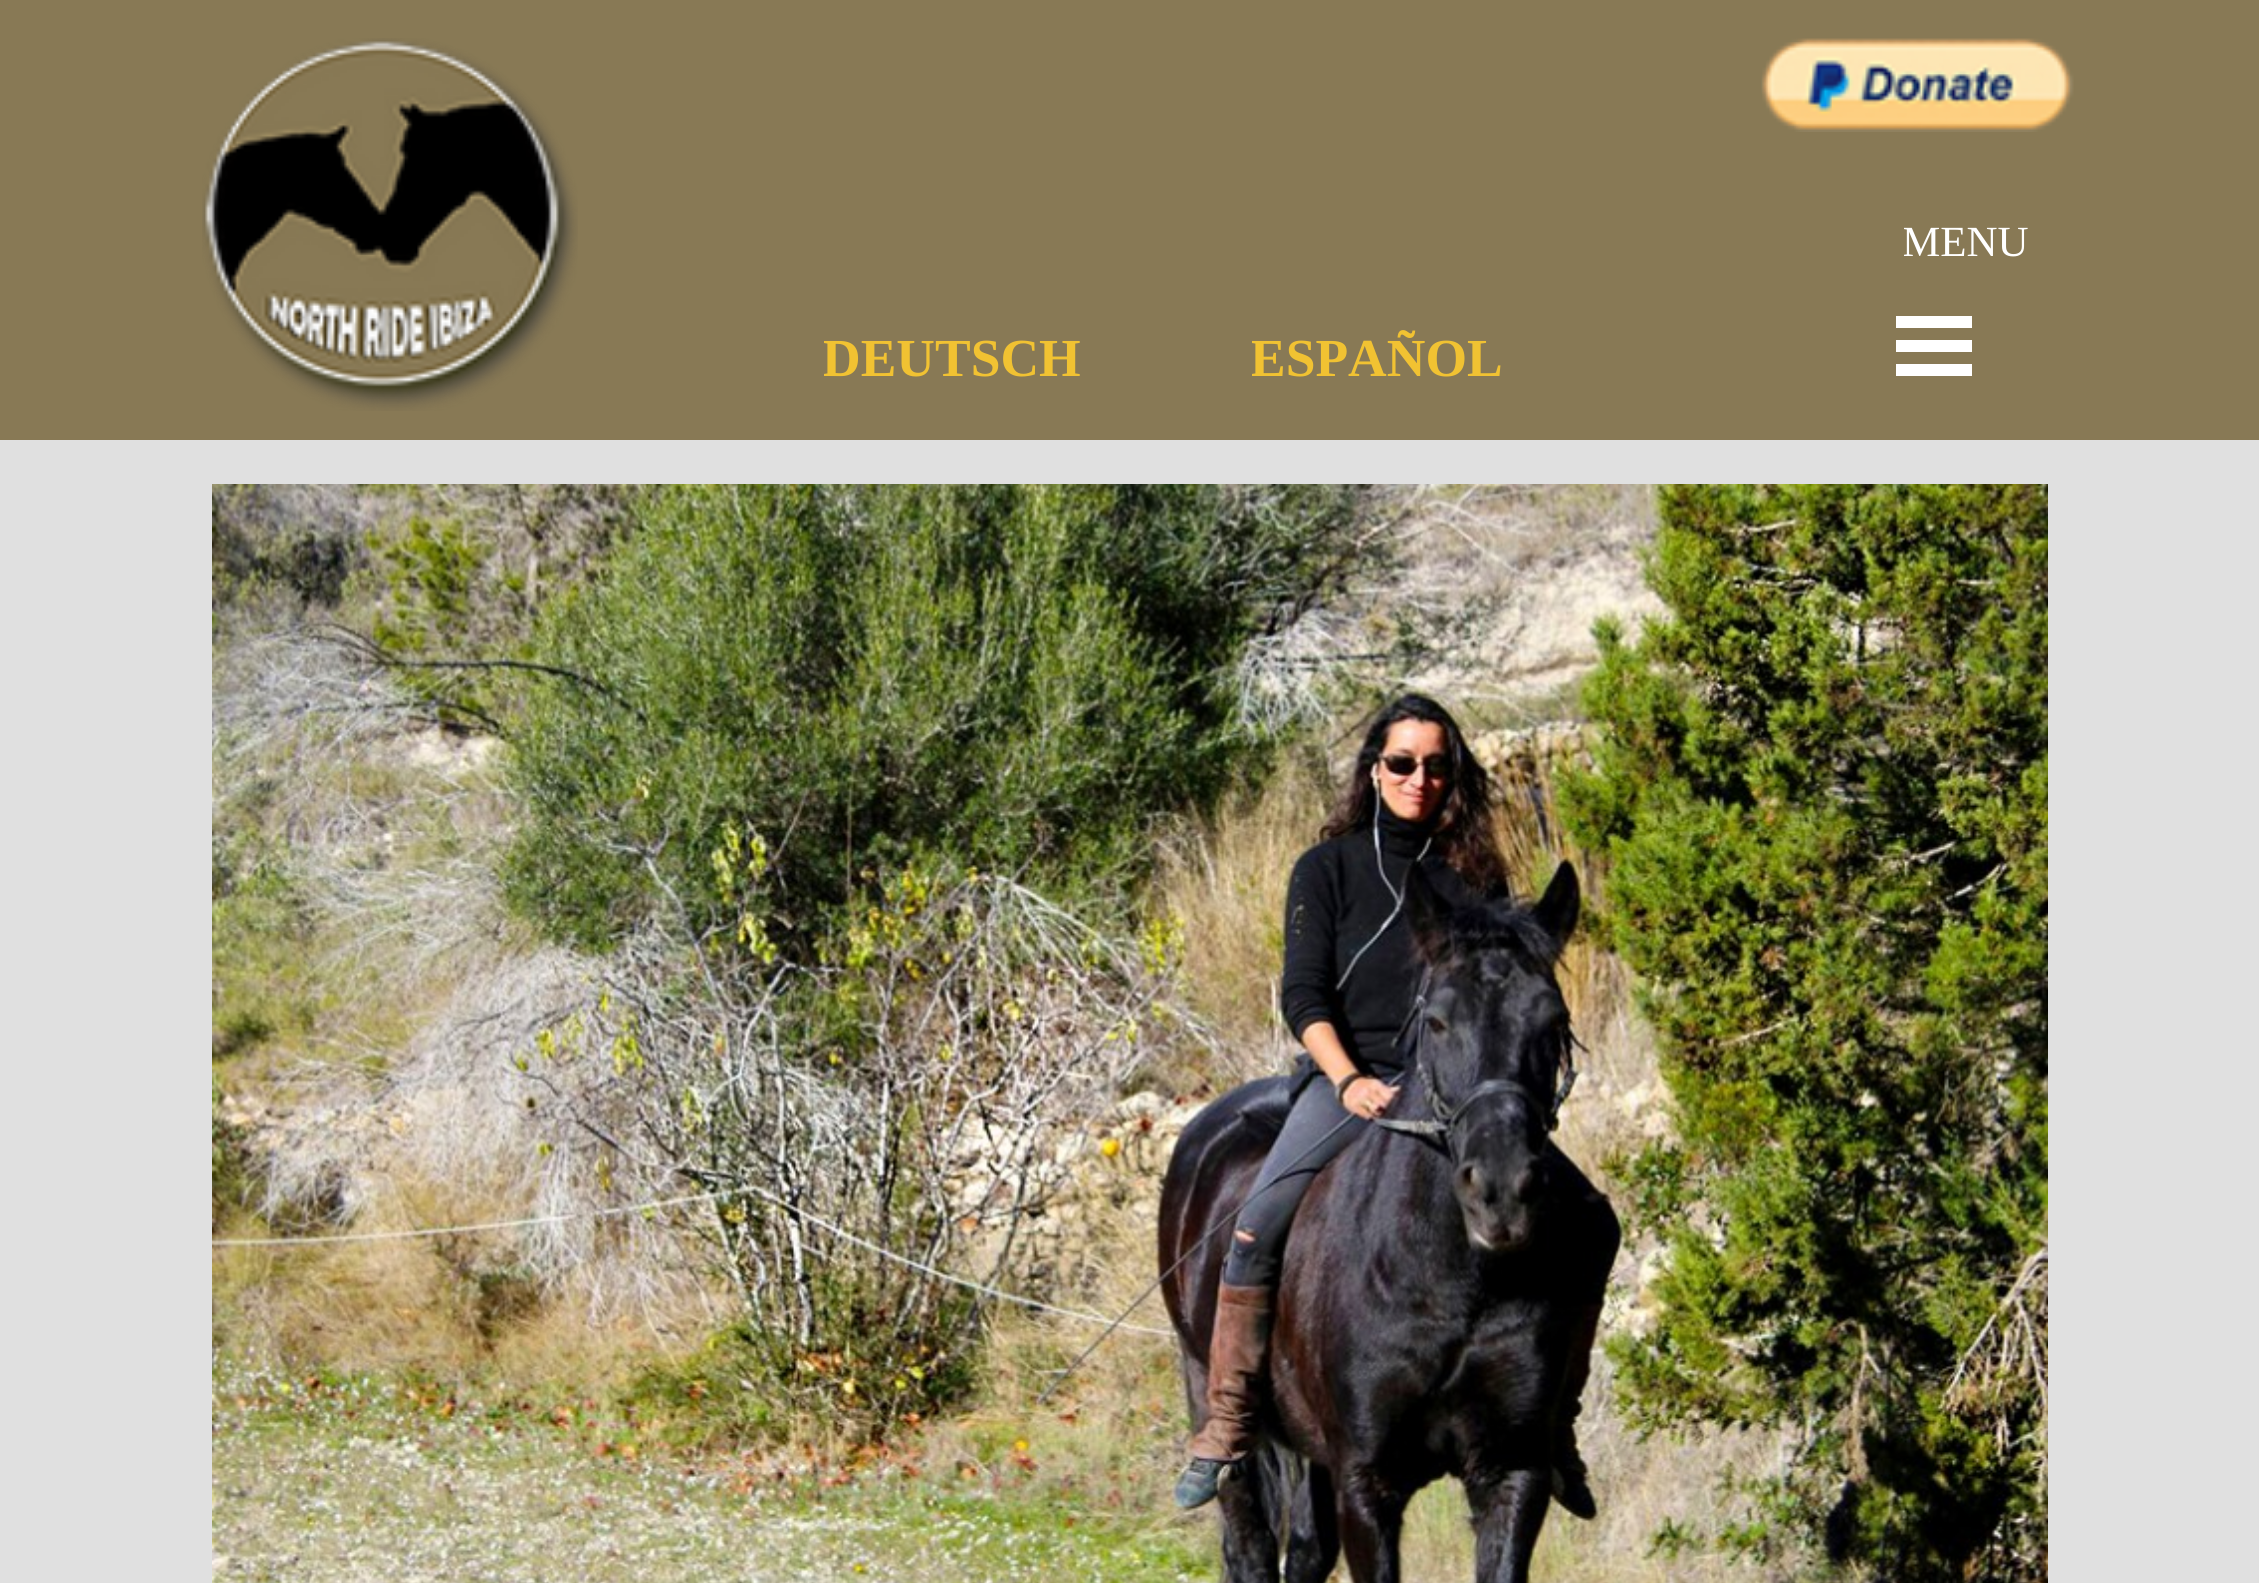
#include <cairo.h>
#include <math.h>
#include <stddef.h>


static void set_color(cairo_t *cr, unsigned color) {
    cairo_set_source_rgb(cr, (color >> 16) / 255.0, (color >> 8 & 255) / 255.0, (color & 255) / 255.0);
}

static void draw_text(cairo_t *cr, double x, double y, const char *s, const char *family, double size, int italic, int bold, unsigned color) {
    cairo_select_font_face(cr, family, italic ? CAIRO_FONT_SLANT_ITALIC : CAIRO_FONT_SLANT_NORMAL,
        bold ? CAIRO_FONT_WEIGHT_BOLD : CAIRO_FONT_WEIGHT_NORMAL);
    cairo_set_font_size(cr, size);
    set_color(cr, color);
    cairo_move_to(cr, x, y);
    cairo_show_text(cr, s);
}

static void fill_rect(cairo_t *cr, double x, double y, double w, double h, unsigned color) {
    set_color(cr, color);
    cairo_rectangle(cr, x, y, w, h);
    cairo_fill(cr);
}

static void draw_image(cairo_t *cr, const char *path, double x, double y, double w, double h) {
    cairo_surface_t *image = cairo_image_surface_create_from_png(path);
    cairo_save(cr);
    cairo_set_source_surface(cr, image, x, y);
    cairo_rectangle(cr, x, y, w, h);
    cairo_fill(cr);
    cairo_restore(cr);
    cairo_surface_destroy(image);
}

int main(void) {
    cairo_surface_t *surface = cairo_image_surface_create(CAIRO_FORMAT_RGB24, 2259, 1583);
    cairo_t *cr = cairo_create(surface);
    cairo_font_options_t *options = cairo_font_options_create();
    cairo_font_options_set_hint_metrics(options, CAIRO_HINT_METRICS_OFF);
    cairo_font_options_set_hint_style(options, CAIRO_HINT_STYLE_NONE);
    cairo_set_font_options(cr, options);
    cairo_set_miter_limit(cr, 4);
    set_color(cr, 0xE0E0E0);
    cairo_paint(cr);
    fill_rect(cr, 0, 0, 2259, 440, 0x887955);
    draw_image(cr, "assets/img1.png", 202, 38, 376, 373);
    draw_image(cr, "assets/img2.png", 1761, 38, 313, 94);
    cairo_save(cr);
    cairo_rectangle(cr, 1904, 192, 200, 88);
    cairo_clip(cr);
    draw_text(cr, 1902, 256, "MENU", "Liberation Serif", 43, 0, 0, 0xFFFFFF);
    cairo_restore(cr);
    cairo_save(cr);
    cairo_rectangle(cr, 824, 312, 400, 88);
    cairo_clip(cr);
    draw_text(cr, 822, 376, "DEUTSCH", "Liberation Serif", 53.5, 0, 1, 0xF1C232);
    cairo_restore(cr);
    cairo_save(cr);
    cairo_rectangle(cr, 1252, 312, 400, 88);
    cairo_clip(cr);
    draw_text(cr, 1250, 376, "ESPAÑOL", "Liberation Serif", 53.5, 0, 1, 0xF1C232);
    cairo_restore(cr);
    fill_rect(cr, 1896, 316, 76, 12, 0xFFFFFF);
    fill_rect(cr, 1896, 340, 76, 12, 0xFFFFFF);
    fill_rect(cr, 1896, 364, 76, 12, 0xFFFFFF);
    draw_image(cr, "assets/img3.png", 212, 484, 1836, 1099);
    cairo_surface_write_to_png(surface, "output.png");
    cairo_font_options_destroy(options);
    cairo_destroy(cr);
    cairo_surface_destroy(surface);
    return 0;
}
